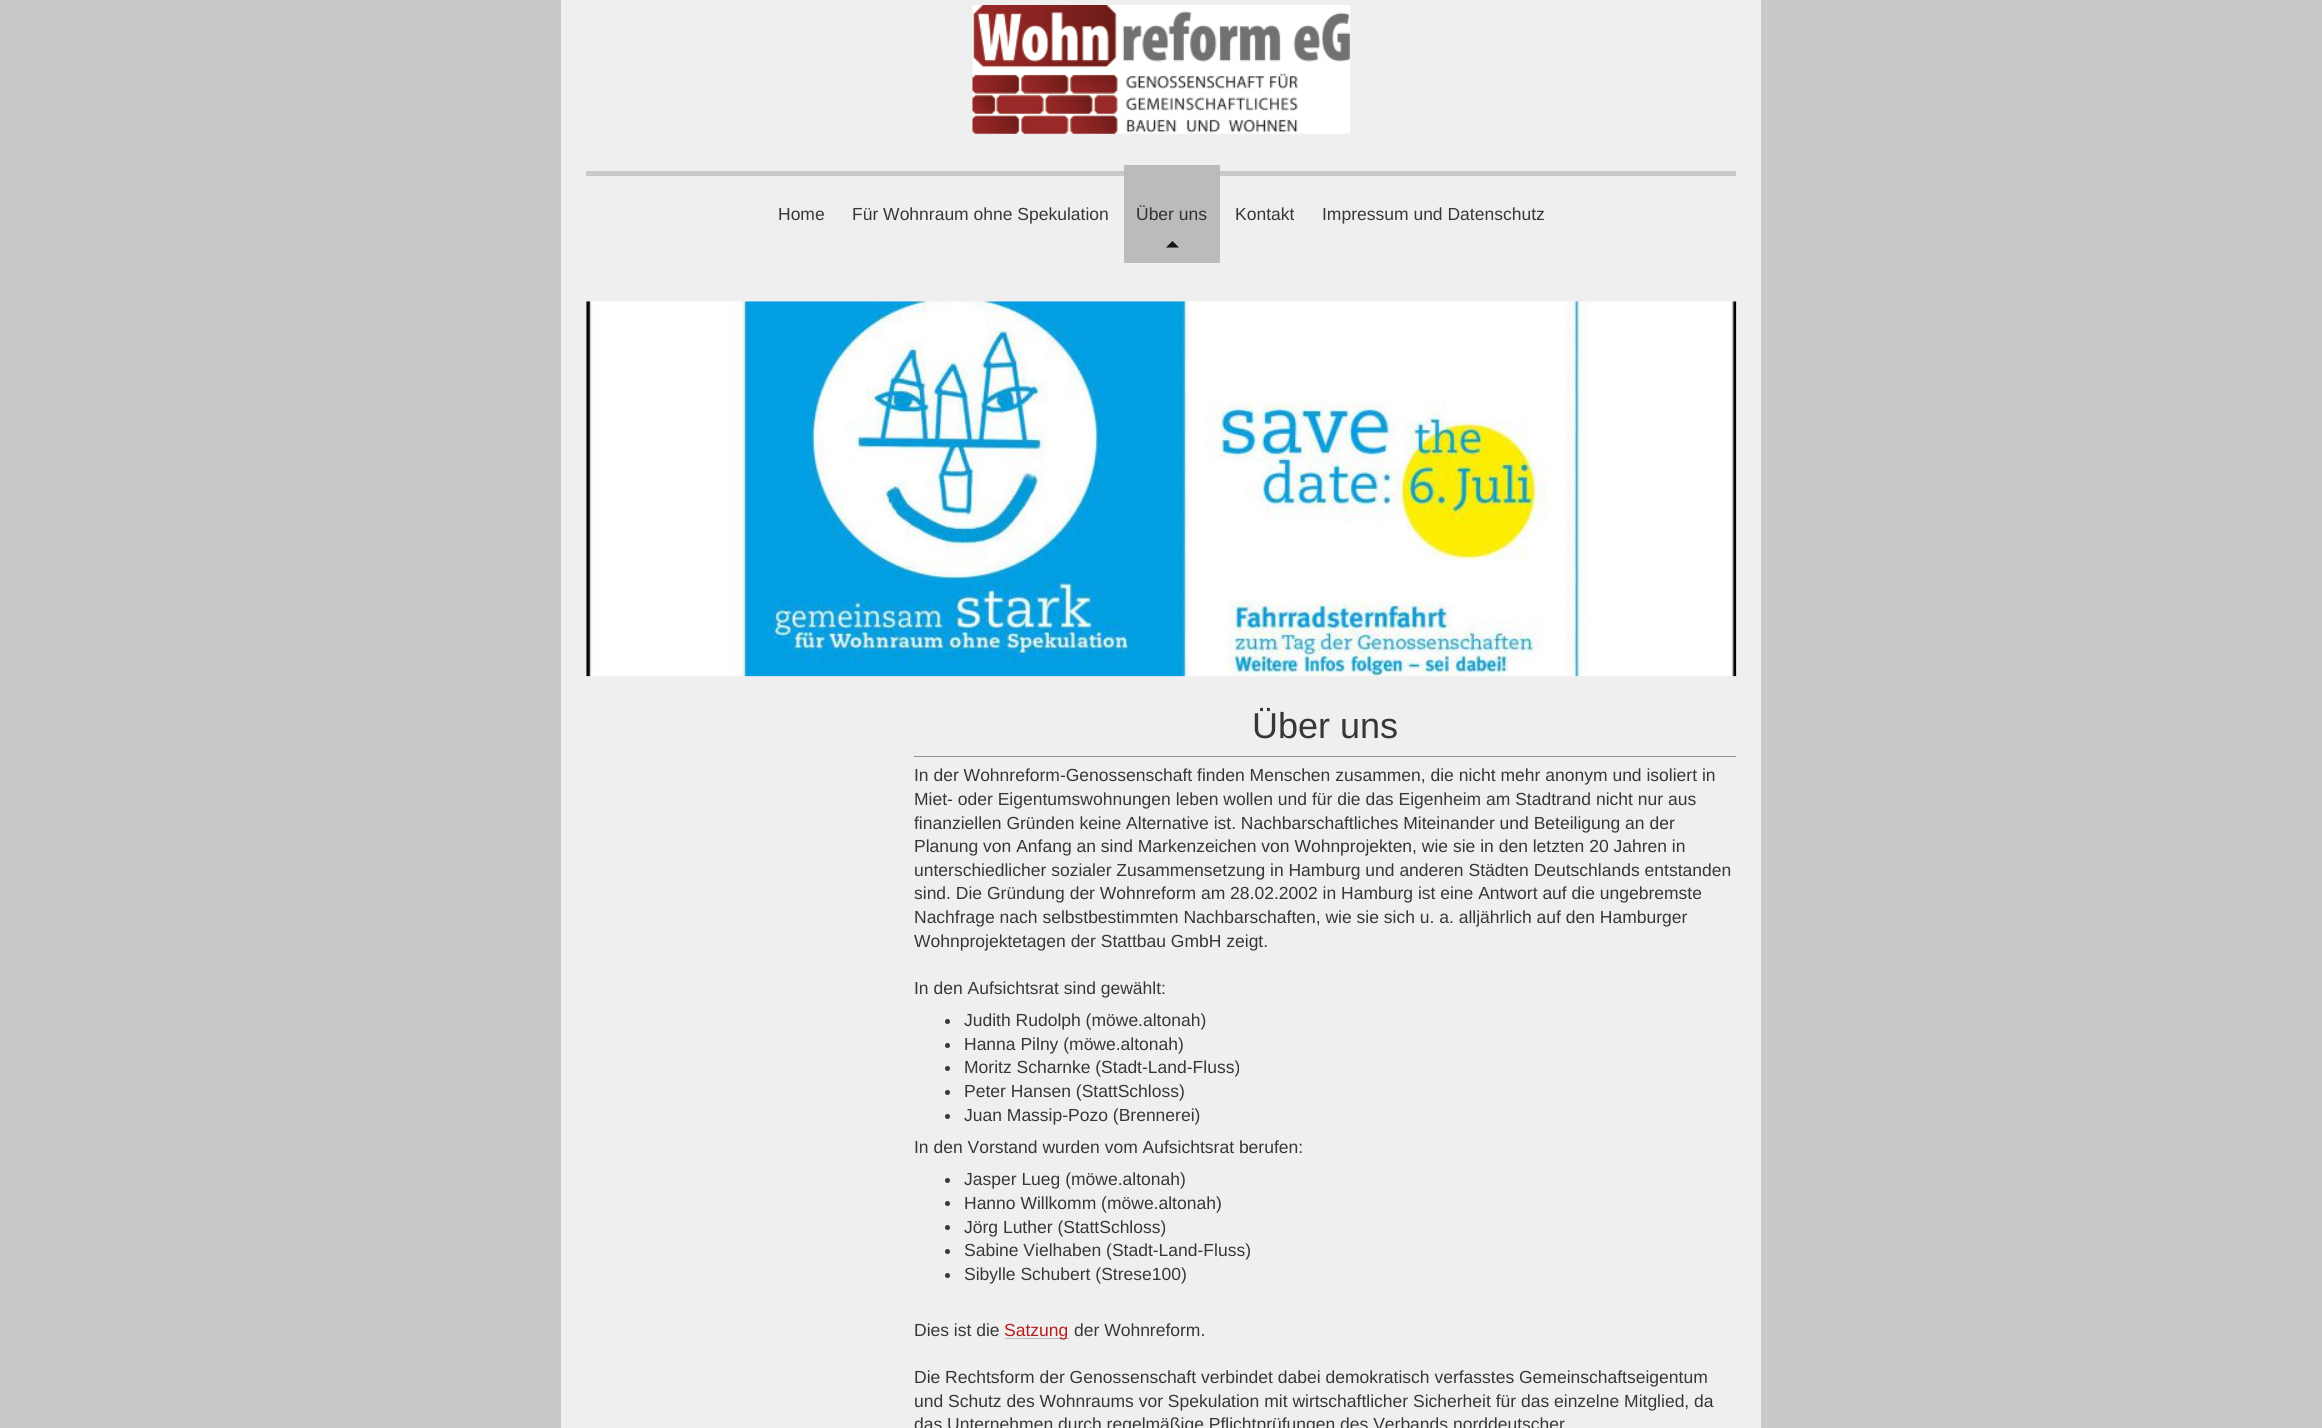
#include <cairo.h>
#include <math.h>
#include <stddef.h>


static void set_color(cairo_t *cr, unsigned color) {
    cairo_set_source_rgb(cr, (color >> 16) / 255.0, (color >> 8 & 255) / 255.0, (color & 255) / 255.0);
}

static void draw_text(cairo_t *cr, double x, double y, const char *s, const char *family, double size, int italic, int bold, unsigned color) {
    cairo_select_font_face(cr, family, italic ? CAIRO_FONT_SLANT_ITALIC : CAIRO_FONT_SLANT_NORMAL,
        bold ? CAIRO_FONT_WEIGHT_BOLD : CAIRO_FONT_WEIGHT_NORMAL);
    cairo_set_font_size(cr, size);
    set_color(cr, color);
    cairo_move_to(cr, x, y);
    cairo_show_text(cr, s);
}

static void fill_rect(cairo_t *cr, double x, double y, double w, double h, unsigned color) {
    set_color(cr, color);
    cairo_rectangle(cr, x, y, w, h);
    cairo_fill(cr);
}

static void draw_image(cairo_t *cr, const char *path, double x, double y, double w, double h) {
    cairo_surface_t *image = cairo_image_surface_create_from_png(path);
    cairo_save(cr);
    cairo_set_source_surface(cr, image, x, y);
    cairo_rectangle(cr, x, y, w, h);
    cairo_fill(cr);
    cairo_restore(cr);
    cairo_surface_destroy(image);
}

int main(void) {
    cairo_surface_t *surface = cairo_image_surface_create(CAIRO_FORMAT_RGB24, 2322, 1428);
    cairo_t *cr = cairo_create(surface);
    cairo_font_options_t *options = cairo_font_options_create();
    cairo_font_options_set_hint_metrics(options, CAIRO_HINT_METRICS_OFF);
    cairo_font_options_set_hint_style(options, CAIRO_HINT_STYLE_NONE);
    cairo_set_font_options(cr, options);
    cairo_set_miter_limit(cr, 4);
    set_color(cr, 0xC9C9C9);
    cairo_paint(cr);
    fill_rect(cr, 561, 0, 1200, 1428, 0xEFEFEF);
    draw_image(cr, "assets/img1.png", 972, 5, 378, 129);
    fill_rect(cr, 586, 171, 1150, 5, 0xC9C9C9);
    draw_text(cr, 778, 220, "Home", "Liberation Sans", 17.5, 0, 0, 0x373737);
    draw_text(cr, 852, 220, "Für Wohnraum ohne Spekulation", "Liberation Sans", 17.5, 0, 0, 0x373737);
    fill_rect(cr, 1124, 165, 96, 98, 0xBBBBBB);
    draw_text(cr, 1136, 220, "Über uns", "Liberation Sans", 17.5, 0, 0, 0x313131);
    set_color(cr, 0x131313);
    cairo_new_path(cr);
    cairo_move_to(cr, 1179, 247.5);
    cairo_line_to(cr, 1166, 247.5);
    cairo_line_to(cr, 1172.5, 241);
    cairo_close_path(cr);
    cairo_fill(cr);
    draw_text(cr, 1235, 220, "Kontakt", "Liberation Sans", 17.5, 0, 0, 0x373737);
    draw_text(cr, 1322, 220, "Impressum und Datenschutz", "Liberation Sans", 17.5, 0, 0, 0x373737);
    draw_image(cr, "assets/img2.png", 586, 301, 1151, 376);
    fill_rect(cr, 586, 301, 1150, 375, 0xEEEEEE);
    draw_image(cr, "assets/img3.png", 586, 301, 1151, 376);
    draw_text(cr, 1252, 738, "Über uns", "Liberation Sans", 36, 0, 0, 0x373737);
    fill_rect(cr, 914, 756, 822, 1, 0x939393);
    draw_text(cr, 914, 781, "In der Wohnreform-Genossenschaft finden Menschen zusammen, die nicht mehr anonym und isoliert in", "Liberation Sans", 17.5, 0, 0, 0x373737);
    draw_text(cr, 914, 805, "Miet- oder Eigentumswohnungen leben wollen und für die das Eigenheim am Stadtrand nicht nur aus", "Liberation Sans", 17.5, 0, 0, 0x373737);
    draw_text(cr, 914, 829, "finanziellen Gründen keine Alternative ist. Nachbarschaftliches Miteinander und Beteiligung an der", "Liberation Sans", 17.5, 0, 0, 0x373737);
    draw_text(cr, 914, 852, "Planung von Anfang an sind Markenzeichen von Wohnprojekten, wie sie in den letzten 20 Jahren in", "Liberation Sans", 17.5, 0, 0, 0x373737);
    draw_text(cr, 914, 876, "unterschiedlicher sozialer Zusammensetzung in Hamburg und anderen Städten Deutschlands entstanden", "Liberation Sans", 17.5, 0, 0, 0x373737);
    draw_text(cr, 914, 899, "sind. Die Gründung der Wohnreform am 28.02.2002 in Hamburg ist eine Antwort auf die ungebremste", "Liberation Sans", 17.5, 0, 0, 0x373737);
    draw_text(cr, 914, 923, "Nachfrage nach selbstbestimmten Nachbarschaften, wie sie sich u. a. alljährlich auf den Hamburger", "Liberation Sans", 17.5, 0, 0, 0x373737);
    draw_text(cr, 914, 947, "Wohnprojektetagen der Stattbau GmbH zeigt.", "Liberation Sans", 17.5, 0, 0, 0x373737);
    draw_text(cr, 914, 994, "In den Aufsichtsrat sind gewählt:", "Liberation Sans", 17.5, 0, 0, 0x373737);
    cairo_new_path(cr);
    cairo_arc(cr, 947.5, 1021.5, 2.5, 0, 2 * M_PI);
    cairo_fill(cr);
    draw_text(cr, 964, 1026, "Judith Rudolph (möwe.altonah)", "Liberation Sans", 17.5, 0, 0, 0x373737);
    cairo_new_path(cr);
    cairo_arc(cr, 947.5, 1045.5, 2.5, 0, 2 * M_PI);
    cairo_fill(cr);
    draw_text(cr, 964, 1050, "Hanna Pilny (möwe.altonah)", "Liberation Sans", 17.5, 0, 0, 0x373737);
    cairo_new_path(cr);
    cairo_arc(cr, 947.5, 1068.5, 2.5, 0, 2 * M_PI);
    cairo_fill(cr);
    draw_text(cr, 964, 1073, "Moritz Scharnke (Stadt-Land-Fluss)", "Liberation Sans", 17.5, 0, 0, 0x373737);
    cairo_new_path(cr);
    cairo_arc(cr, 947.5, 1092.5, 2.5, 0, 2 * M_PI);
    cairo_fill(cr);
    draw_text(cr, 964, 1097, "Peter Hansen (StattSchloss)", "Liberation Sans", 17.5, 0, 0, 0x373737);
    cairo_new_path(cr);
    cairo_arc(cr, 947.5, 1116.5, 2.5, 0, 2 * M_PI);
    cairo_fill(cr);
    draw_text(cr, 964, 1121, "Juan Massip-Pozo (Brennerei)", "Liberation Sans", 17.5, 0, 0, 0x373737);
    draw_text(cr, 914, 1153, "In den Vorstand wurden vom Aufsichtsrat berufen:", "Liberation Sans", 17.5, 0, 0, 0x373737);
    cairo_new_path(cr);
    cairo_arc(cr, 947.5, 1180.5, 2.5, 0, 2 * M_PI);
    cairo_fill(cr);
    draw_text(cr, 964, 1185, "Jasper Lueg (möwe.altonah)", "Liberation Sans", 17.5, 0, 0, 0x373737);
    cairo_new_path(cr);
    cairo_arc(cr, 947.5, 1203.5, 2.5, 0, 2 * M_PI);
    cairo_fill(cr);
    draw_text(cr, 964, 1209, "Hanno Willkomm (möwe.altonah)", "Liberation Sans", 17.5, 0, 0, 0x373737);
    cairo_new_path(cr);
    cairo_arc(cr, 947.5, 1227.5, 2.5, 0, 2 * M_PI);
    cairo_fill(cr);
    draw_text(cr, 964, 1233, "Jörg Luther (StattSchloss)", "Liberation Sans", 17.5, 0, 0, 0x373737);
    cairo_new_path(cr);
    cairo_arc(cr, 947.5, 1251.5, 2.5, 0, 2 * M_PI);
    cairo_fill(cr);
    draw_text(cr, 964, 1256, "Sabine Vielhaben (Stadt-Land-Fluss)", "Liberation Sans", 17.5, 0, 0, 0x373737);
    cairo_new_path(cr);
    cairo_arc(cr, 947.5, 1275.5, 2.5, 0, 2 * M_PI);
    cairo_fill(cr);
    draw_text(cr, 964, 1280, "Sibylle Schubert (Strese100)", "Liberation Sans", 17.5, 0, 0, 0x373737);
    draw_text(cr, 914, 1336, "Dies ist die", "Liberation Sans", 17.5, 0, 0, 0x373737);
    fill_rect(cr, 1005, 1338, 64, 1, 0xBBBBBB);
    draw_text(cr, 1004, 1336, "Satzung", "Liberation Sans", 17.5, 0, 0, 0xB71C1C);
    draw_text(cr, 1074, 1336, "der Wohnreform.", "Liberation Sans", 17.5, 0, 0, 0x373737);
    draw_text(cr, 914, 1383, "Die Rechtsform der Genossenschaft verbindet dabei demokratisch verfasstes Gemeinschaftseigentum", "Liberation Sans", 17.5, 0, 0, 0x373737);
    draw_text(cr, 914, 1407, "und Schutz des Wohnraums vor Spekulation mit wirtschaftlicher Sicherheit für das einzelne Mitglied, da", "Liberation Sans", 17.5, 0, 0, 0x373737);
    draw_text(cr, 914, 1430, "das Unternehmen durch regelmäßige Pflichtprüfungen des Verbands norddeutscher", "Liberation Sans", 17.5, 0, 0, 0x373737);
    cairo_surface_write_to_png(surface, "output.png");
    cairo_font_options_destroy(options);
    cairo_destroy(cr);
    cairo_surface_destroy(surface);
    return 0;
}
